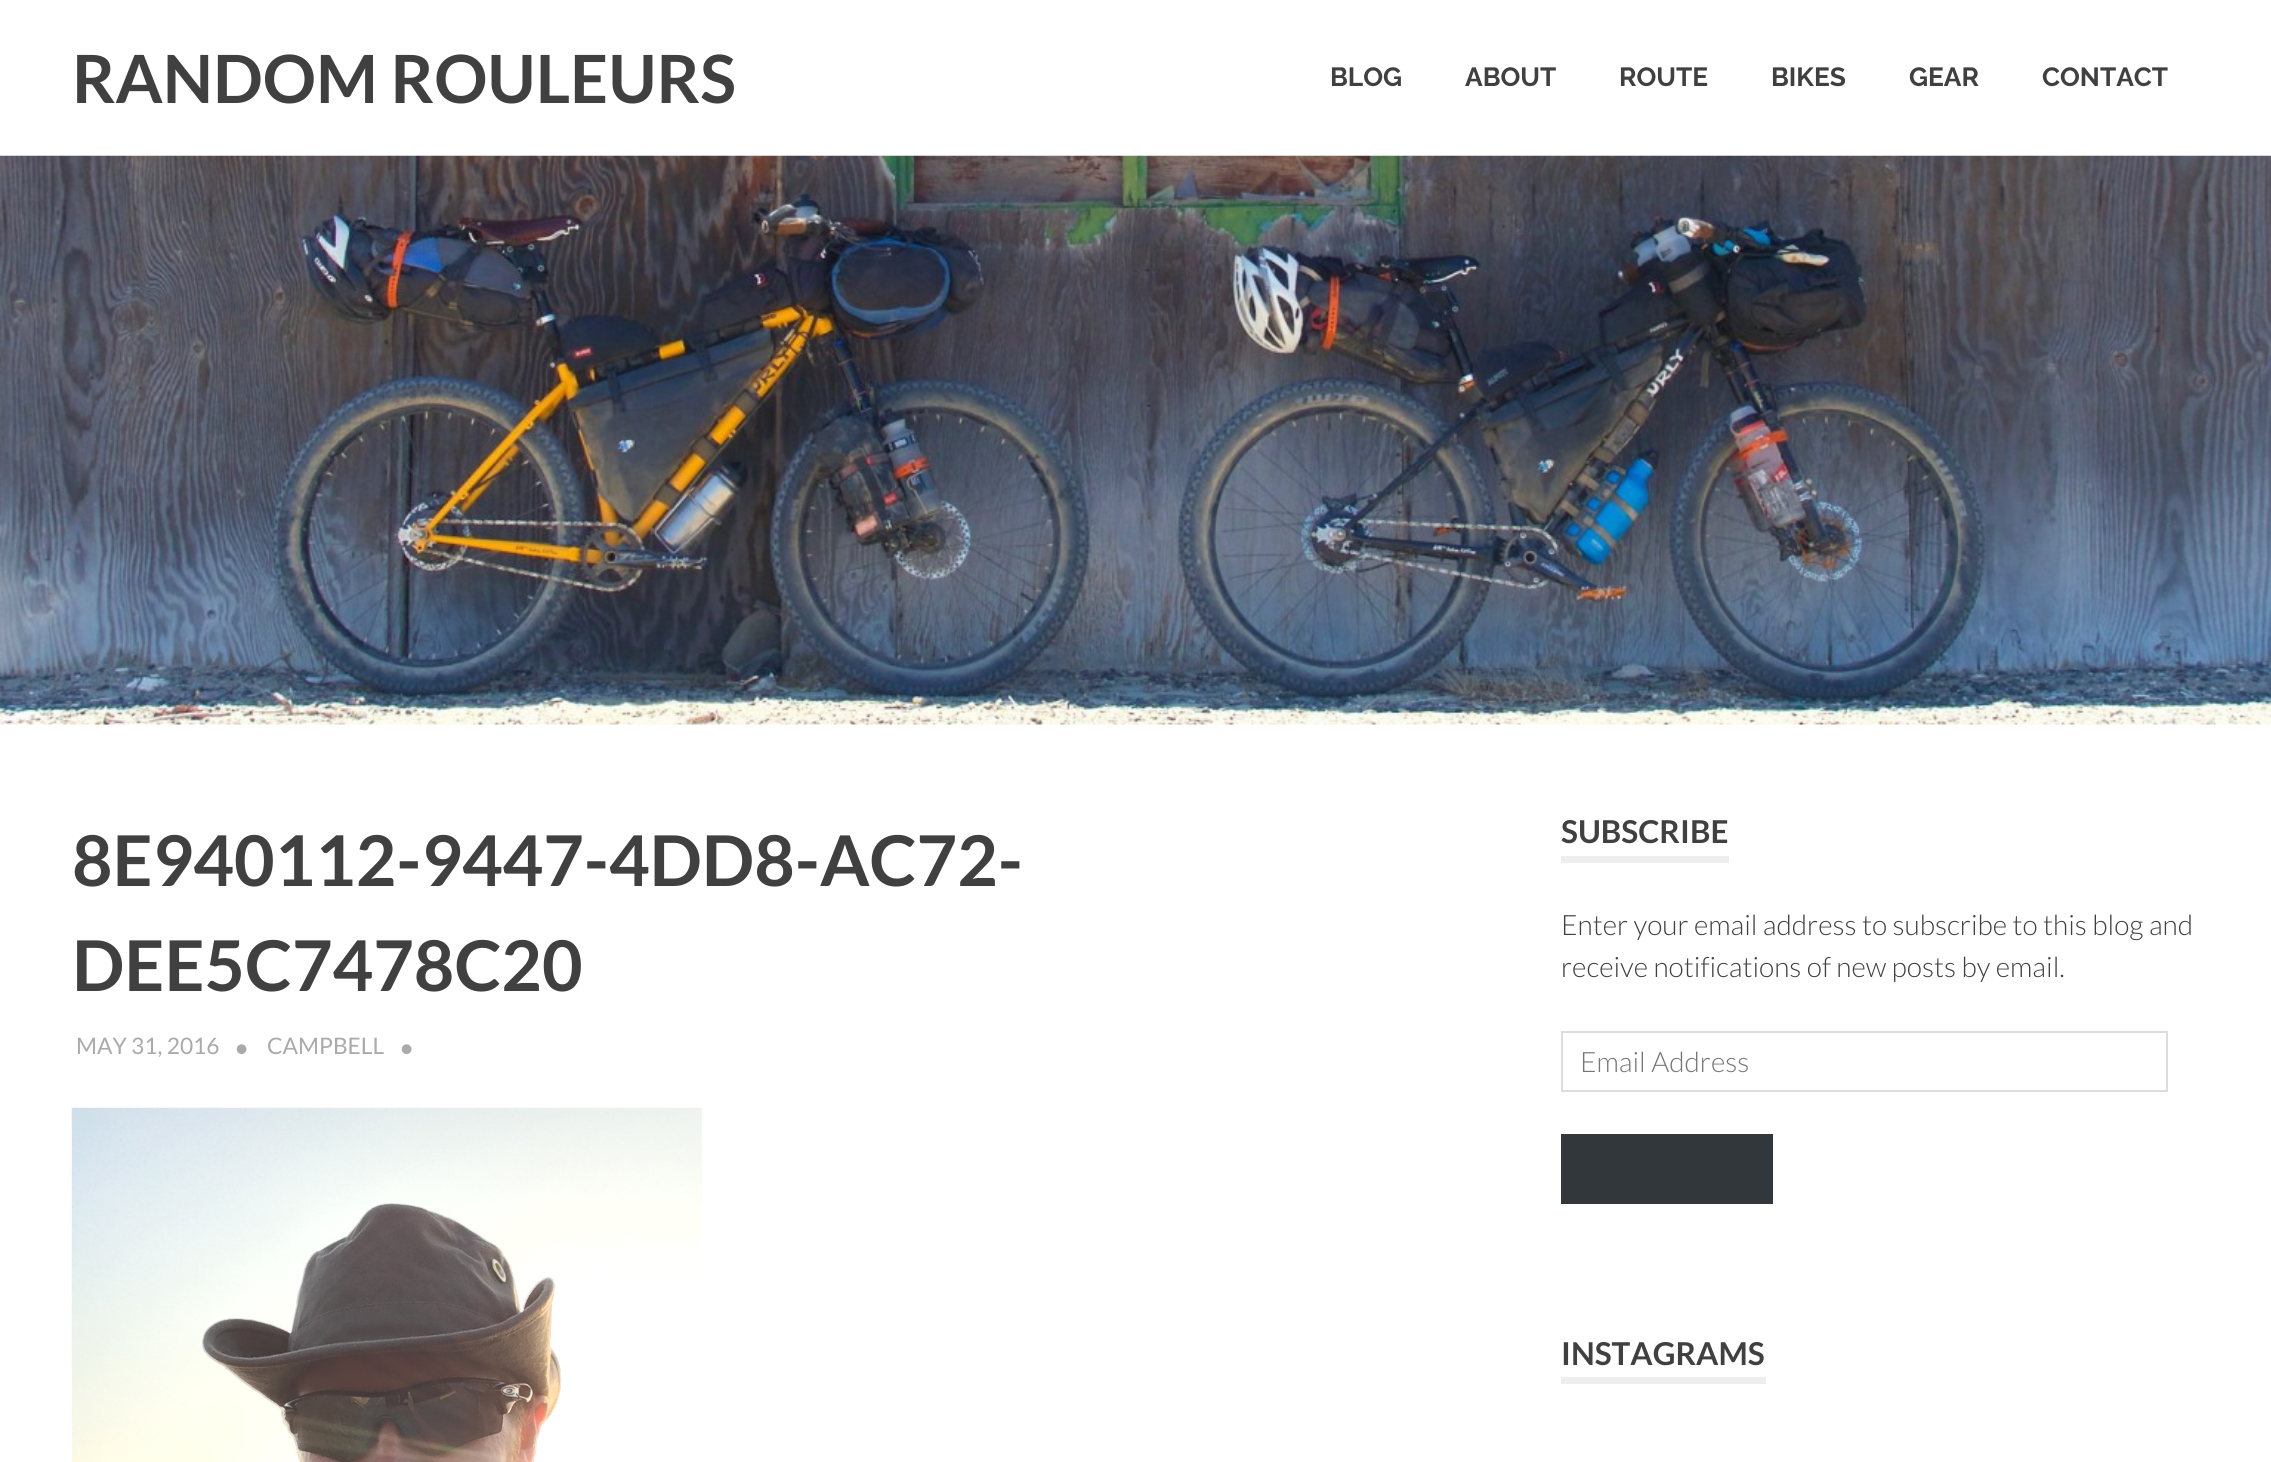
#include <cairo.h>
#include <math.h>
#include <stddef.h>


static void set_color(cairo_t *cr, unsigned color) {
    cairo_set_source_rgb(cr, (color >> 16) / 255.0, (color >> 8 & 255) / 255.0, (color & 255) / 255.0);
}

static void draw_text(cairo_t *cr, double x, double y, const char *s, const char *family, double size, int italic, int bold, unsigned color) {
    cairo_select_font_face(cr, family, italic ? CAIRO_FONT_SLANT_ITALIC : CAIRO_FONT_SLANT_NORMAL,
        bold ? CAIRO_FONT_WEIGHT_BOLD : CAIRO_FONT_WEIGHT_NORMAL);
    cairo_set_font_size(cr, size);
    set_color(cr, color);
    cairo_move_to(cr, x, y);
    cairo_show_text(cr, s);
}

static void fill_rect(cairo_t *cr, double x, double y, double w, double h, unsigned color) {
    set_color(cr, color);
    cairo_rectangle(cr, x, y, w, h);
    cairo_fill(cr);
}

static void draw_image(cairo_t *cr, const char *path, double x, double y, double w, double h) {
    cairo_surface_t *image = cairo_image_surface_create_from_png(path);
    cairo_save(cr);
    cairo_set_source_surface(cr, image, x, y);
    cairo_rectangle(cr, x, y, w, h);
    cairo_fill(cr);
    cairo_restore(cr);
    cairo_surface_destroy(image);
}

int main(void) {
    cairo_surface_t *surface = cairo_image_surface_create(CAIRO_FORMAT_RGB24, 2271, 1462);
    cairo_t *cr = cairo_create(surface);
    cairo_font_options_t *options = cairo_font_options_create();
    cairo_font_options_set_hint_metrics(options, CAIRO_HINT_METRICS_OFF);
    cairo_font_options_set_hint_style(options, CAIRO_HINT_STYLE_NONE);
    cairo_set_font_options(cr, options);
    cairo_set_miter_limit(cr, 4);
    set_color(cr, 0xFFFFFF);
    cairo_paint(cr);
    draw_text(cr, 72, 103, "RANDOM ROULEURS", "Lato", 66.5, 0, 1, 0x404040);
    draw_text(cr, 1330, 86, "BLOG", "Raleway", 26.25, 0, 1, 0x404040);
    draw_text(cr, 1465, 86, "ABOUT", "Raleway", 26.25, 0, 1, 0x404040);
    draw_text(cr, 1619, 86, "ROUTE", "Raleway", 26.25, 0, 1, 0x404040);
    draw_text(cr, 1771, 86, "BIKES", "Raleway", 26.25, 0, 1, 0x404040);
    draw_text(cr, 1909, 86, "GEAR", "Raleway", 26.25, 0, 1, 0x404040);
    draw_text(cr, 2042, 86, "CONTACT", "Raleway", 26.25, 0, 1, 0x404040);
    draw_image(cr, "assets/img1.png", 0, 155, 2271, 570);
    draw_text(cr, 72, 886, "8E940112-9447-4DD8-AC72-", "Lato", 70, 0, 1, 0x404040);
    draw_text(cr, 72, 991, "DEE5C7478C20", "Lato", 70, 0, 1, 0x404040);
    draw_text(cr, 76, 1054, "MAY 31, 2016", "Lato", 22.75, 0, 0, 0xAAAAAA);
    draw_text(cr, 234, 1057, "•", "Lato", 26.25, 0, 0, 0xAAAAAA);
    draw_text(cr, 267, 1054, "CAMPBELL", "Lato", 22.75, 0, 0, 0xAAAAAA);
    draw_text(cr, 399, 1057, "•", "Lato", 26.25, 0, 0, 0xAAAAAA);
    draw_image(cr, "assets/img2.png", 71, 1107, 631, 355);
    fill_rect(cr, 1561, 856, 168, 7, 0xEEEEEE);
    draw_text(cr, 1561, 843, "SUBSCRIBE", "Lato", 31.5, 0, 1, 0x404040);
    draw_text(cr, 1561, 935, "Enter your email address to subscribe to this blog and", "Lato Light", 28, 0, 0, 0x404040);
    draw_text(cr, 1561, 977, "receive notifications of new posts by email.", "Lato Light", 28, 0, 0, 0x404040);
    cairo_rectangle(cr, 1562, 1032, 605, 59);
    set_color(cr, 0xDDDDDD);
    cairo_stroke(cr);
    draw_text(cr, 1580, 1072, "Email Address", "Lato Light", 28, 0, 0, 0x757575);
    fill_rect(cr, 1561, 1134, 212, 70, 0x32373C);
    fill_rect(cr, 1561, 1377, 205, 7, 0xEEEEEE);
    draw_text(cr, 1561, 1365, "INSTAGRAMS", "Lato", 31.5, 0, 1, 0x404040);
    cairo_surface_write_to_png(surface, "output.png");
    cairo_font_options_destroy(options);
    cairo_destroy(cr);
    cairo_surface_destroy(surface);
    return 0;
}
